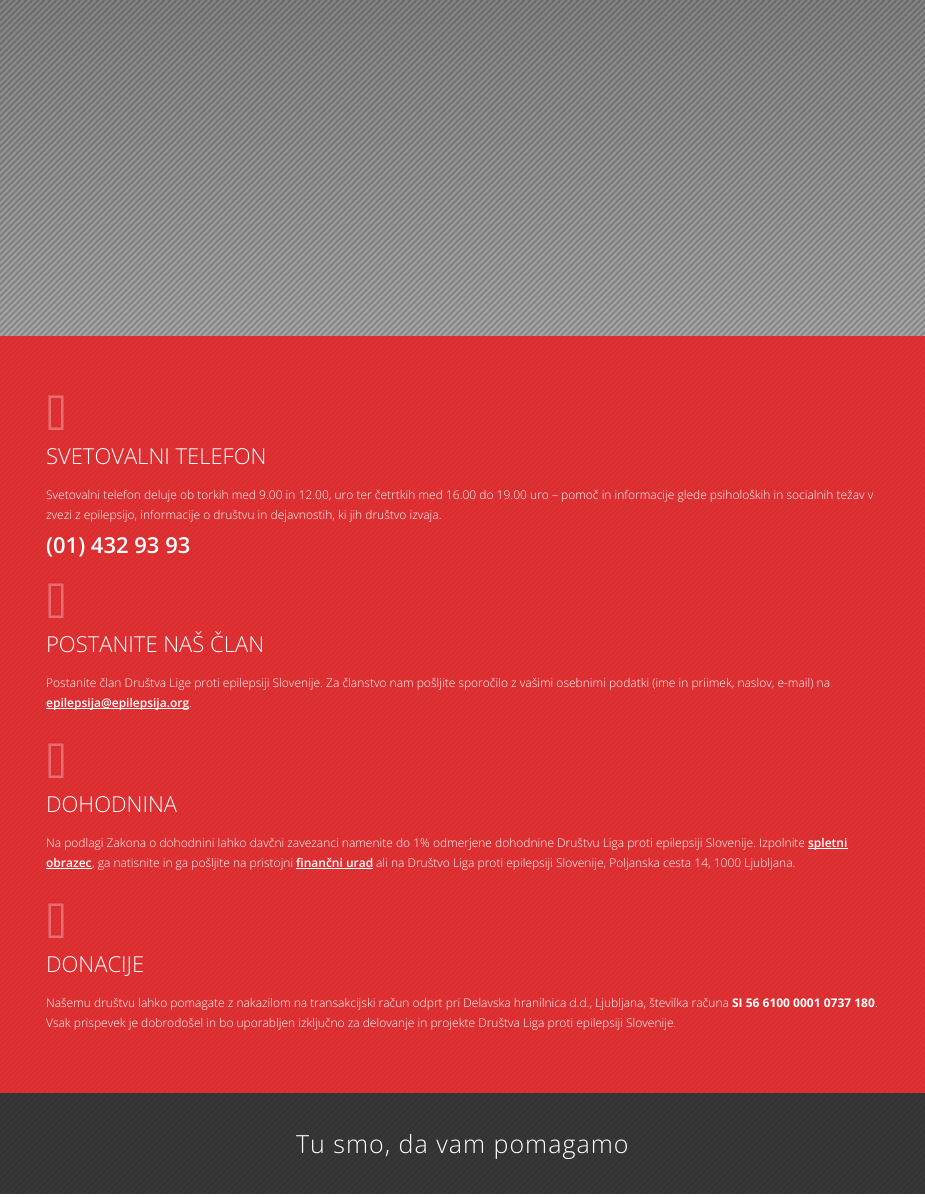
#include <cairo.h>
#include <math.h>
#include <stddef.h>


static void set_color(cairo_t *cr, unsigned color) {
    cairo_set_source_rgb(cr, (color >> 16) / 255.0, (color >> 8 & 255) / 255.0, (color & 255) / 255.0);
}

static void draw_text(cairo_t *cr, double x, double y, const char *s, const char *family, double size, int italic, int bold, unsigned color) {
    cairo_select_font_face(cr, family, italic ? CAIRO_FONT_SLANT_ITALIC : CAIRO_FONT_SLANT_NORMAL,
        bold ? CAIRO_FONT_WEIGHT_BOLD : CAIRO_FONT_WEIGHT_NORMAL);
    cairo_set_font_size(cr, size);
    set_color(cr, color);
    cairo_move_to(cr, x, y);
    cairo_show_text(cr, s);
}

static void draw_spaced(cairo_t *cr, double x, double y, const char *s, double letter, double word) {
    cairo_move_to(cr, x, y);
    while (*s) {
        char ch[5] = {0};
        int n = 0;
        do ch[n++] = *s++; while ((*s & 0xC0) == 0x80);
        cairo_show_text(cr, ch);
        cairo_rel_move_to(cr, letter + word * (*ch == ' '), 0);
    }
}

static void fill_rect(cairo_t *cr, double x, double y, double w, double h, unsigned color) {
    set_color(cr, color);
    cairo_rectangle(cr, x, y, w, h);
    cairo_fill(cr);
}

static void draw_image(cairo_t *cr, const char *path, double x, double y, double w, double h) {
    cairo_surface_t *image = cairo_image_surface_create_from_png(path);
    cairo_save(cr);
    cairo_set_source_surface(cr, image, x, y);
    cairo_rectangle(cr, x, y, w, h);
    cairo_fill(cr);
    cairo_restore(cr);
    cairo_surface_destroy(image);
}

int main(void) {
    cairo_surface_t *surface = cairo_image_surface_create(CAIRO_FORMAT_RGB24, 925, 1197);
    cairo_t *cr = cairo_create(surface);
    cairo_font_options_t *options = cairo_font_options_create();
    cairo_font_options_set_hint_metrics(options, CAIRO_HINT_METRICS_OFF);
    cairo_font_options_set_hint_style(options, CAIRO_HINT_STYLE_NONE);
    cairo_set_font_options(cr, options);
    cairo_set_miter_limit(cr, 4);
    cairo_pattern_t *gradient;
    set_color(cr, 0xFFFFFF);
    cairo_paint(cr);
    gradient = cairo_pattern_create_linear(462, 0, 463, 1197);
    cairo_pattern_add_color_stop_rgba(gradient, 0, 0.522, 0.522, 0.522, 1);
    cairo_pattern_add_color_stop_rgba(gradient, 1, 1, 1, 1, 1);
    cairo_set_source(cr, gradient);
    cairo_pattern_destroy(gradient);
    cairo_rectangle(cr, 0, 0, 925, 336);
    cairo_fill(cr);
    draw_image(cr, "assets/img1.png", 0, 0, 925, 336);
    fill_rect(cr, 0, 336, 925, 757, 0xE33033);
    draw_image(cr, "assets/img2.png", 0, 336, 925, 757);
    cairo_set_source_rgba(cr, 1, 1, 1, 0.3);
    cairo_new_path(cr);
    cairo_move_to(cr, 51, 427.5);
    cairo_line_to(cr, 51, 398);
    cairo_line_to(cr, 61, 398);
    cairo_line_to(cr, 61, 427.5);
    cairo_close_path(cr);
    cairo_move_to(cr, 48.5, 430);
    cairo_line_to(cr, 63.5, 430);
    cairo_line_to(cr, 63.5, 395.5);
    cairo_line_to(cr, 48.5, 395.5);
    cairo_close_path(cr);
    cairo_fill(cr);
    draw_text(cr, 46, 464, "SVETOVALNI TELEFON", "Open Sans Light", 22, 0, 0, 0xFFFFFF);
    draw_text(cr, 46, 499, "Svetovalni telefon deluje ob torkih med 9.00 in 12.00, uro ter četrtkih med 16.00 do 19.00 uro – pomoč in informacije glede psiholoških in socialnih težav v", "Open Sans Light", 12, 0, 0, 0xFFFFFF);
    draw_text(cr, 46, 519, "zvezi z epilepsijo, informacije o društvu in dejavnostih, ki jih društvo izvaja.", "Open Sans Light", 12, 0, 0, 0xFFFFFF);
    draw_text(cr, 46, 553, "(01) 432 93 93", "Open Sans SemiBold", 22, 0, 0, 0xFFFFFF);
    cairo_set_source_rgba(cr, 1, 1, 1, 0.3);
    cairo_new_path(cr);
    cairo_move_to(cr, 51, 615.5);
    cairo_line_to(cr, 51, 586);
    cairo_line_to(cr, 61, 586);
    cairo_line_to(cr, 61, 615.5);
    cairo_close_path(cr);
    cairo_move_to(cr, 48.5, 618);
    cairo_line_to(cr, 63.5, 618);
    cairo_line_to(cr, 63.5, 583.5);
    cairo_line_to(cr, 48.5, 583.5);
    cairo_close_path(cr);
    cairo_fill(cr);
    draw_text(cr, 46, 652, "POSTANITE NAŠ ČLAN", "Open Sans Light", 22, 0, 0, 0xFFFFFF);
    draw_text(cr, 46, 687, "Postanite član Društva Lige proti epilepsiji Slovenije. Za članstvo nam pošljite sporočilo z vašimi osebnimi podatki (ime in priimek, naslov, e-mail) na", "Open Sans Light", 12, 0, 0, 0xFFFFFF);
    fill_rect(cr, 46, 708, 143, 1, 0xFFFFFF);
    draw_text(cr, 46, 707, "epilepsija@epilepsija.org", "Open Sans SemiBold", 12, 0, 0, 0xFFFFFF);
    draw_text(cr, 189, 707, ".", "Open Sans Light", 12, 0, 0, 0xFFFFFF);
    cairo_set_source_rgba(cr, 1, 1, 1, 0.3);
    cairo_new_path(cr);
    cairo_move_to(cr, 51, 775.5);
    cairo_line_to(cr, 51, 746);
    cairo_line_to(cr, 61, 746);
    cairo_line_to(cr, 61, 775.5);
    cairo_close_path(cr);
    cairo_move_to(cr, 48.5, 778);
    cairo_line_to(cr, 63.5, 778);
    cairo_line_to(cr, 63.5, 743.5);
    cairo_line_to(cr, 48.5, 743.5);
    cairo_close_path(cr);
    cairo_fill(cr);
    draw_text(cr, 46, 812, "DOHODNINA", "Open Sans Light", 22, 0, 0, 0xFFFFFF);
    draw_text(cr, 46, 847, "Na podlagi Zakona o dohodnini lahko davčni zavezanci namenite do 1% odmerjene dohodnine Društvu Liga proti epilepsiji Slovenije. Izpolnite", "Open Sans Light", 12, 0, 0, 0xFFFFFF);
    fill_rect(cr, 808, 848, 40, 1, 0xFFFFFF);
    draw_text(cr, 808, 847, "spletni", "Open Sans SemiBold", 12, 0, 0, 0xFFFFFF);
    draw_text(cr, 46, 867, "obrazec", "Open Sans SemiBold", 12, 0, 0, 0xFFFFFF);
    fill_rect(cr, 46, 868, 46, 1, 0xFFFFFF);
    draw_text(cr, 92, 867, ", ga natisnite in ga pošljite na pristojni", "Open Sans Light", 12, 0, 0, 0xFFFFFF);
    draw_text(cr, 296, 867, "finančni urad", "Open Sans SemiBold", 12, 0, 0, 0xFFFFFF);
    fill_rect(cr, 296, 868, 77, 1, 0xFFFFFF);
    draw_text(cr, 376, 867, "ali na Društvo Liga proti epilepsiji Slovenije, Poljanska cesta 14, 1000 Ljubljana.", "Open Sans Light", 12, 0, 0, 0xFFFFFF);
    cairo_set_source_rgba(cr, 1, 1, 1, 0.3);
    cairo_new_path(cr);
    cairo_move_to(cr, 51, 935.5);
    cairo_line_to(cr, 51, 906);
    cairo_line_to(cr, 61, 906);
    cairo_line_to(cr, 61, 935.5);
    cairo_close_path(cr);
    cairo_move_to(cr, 48.5, 938);
    cairo_line_to(cr, 63.5, 938);
    cairo_line_to(cr, 63.5, 903.5);
    cairo_line_to(cr, 48.5, 903.5);
    cairo_close_path(cr);
    cairo_fill(cr);
    draw_text(cr, 46, 972, "DONACIJE", "Open Sans Light", 22, 0, 0, 0xFFFFFF);
    draw_text(cr, 46, 1007, "Našemu društvu lahko pomagate z nakazilom na transakcijski račun odprt pri Delavska hranilnica d.d., Ljubljana, številka računa", "Open Sans Light", 12, 0, 0, 0xFFFFFF);
    draw_text(cr, 732, 1007, "SI 56 6100 0001 0737 180", "Open Sans", 12, 0, 1, 0xFFFFFF);
    draw_text(cr, 875, 1007, ".", "Open Sans Light", 12, 0, 0, 0xFFFFFF);
    draw_text(cr, 46, 1027, "Vsak prispevek je dobrodošel in bo uporabljen izključno za delovanje in projekte Društva Liga proti epilepsiji Slovenije.", "Open Sans Light", 12, 0, 0, 0xFFFFFF);
    fill_rect(cr, 0, 1093, 925, 101, 0x333333);
    draw_image(cr, "assets/img3.png", 0, 1093, 925, 101);
    cairo_set_font_size(cr, 25);
    set_color(cr, 0xFFFFFF);
    draw_spaced(cr, 296, 1153, "Tu smo, da vam pomagamo", 1, 0);
    cairo_surface_write_to_png(surface, "output.png");
    cairo_font_options_destroy(options);
    cairo_destroy(cr);
    cairo_surface_destroy(surface);
    return 0;
}
